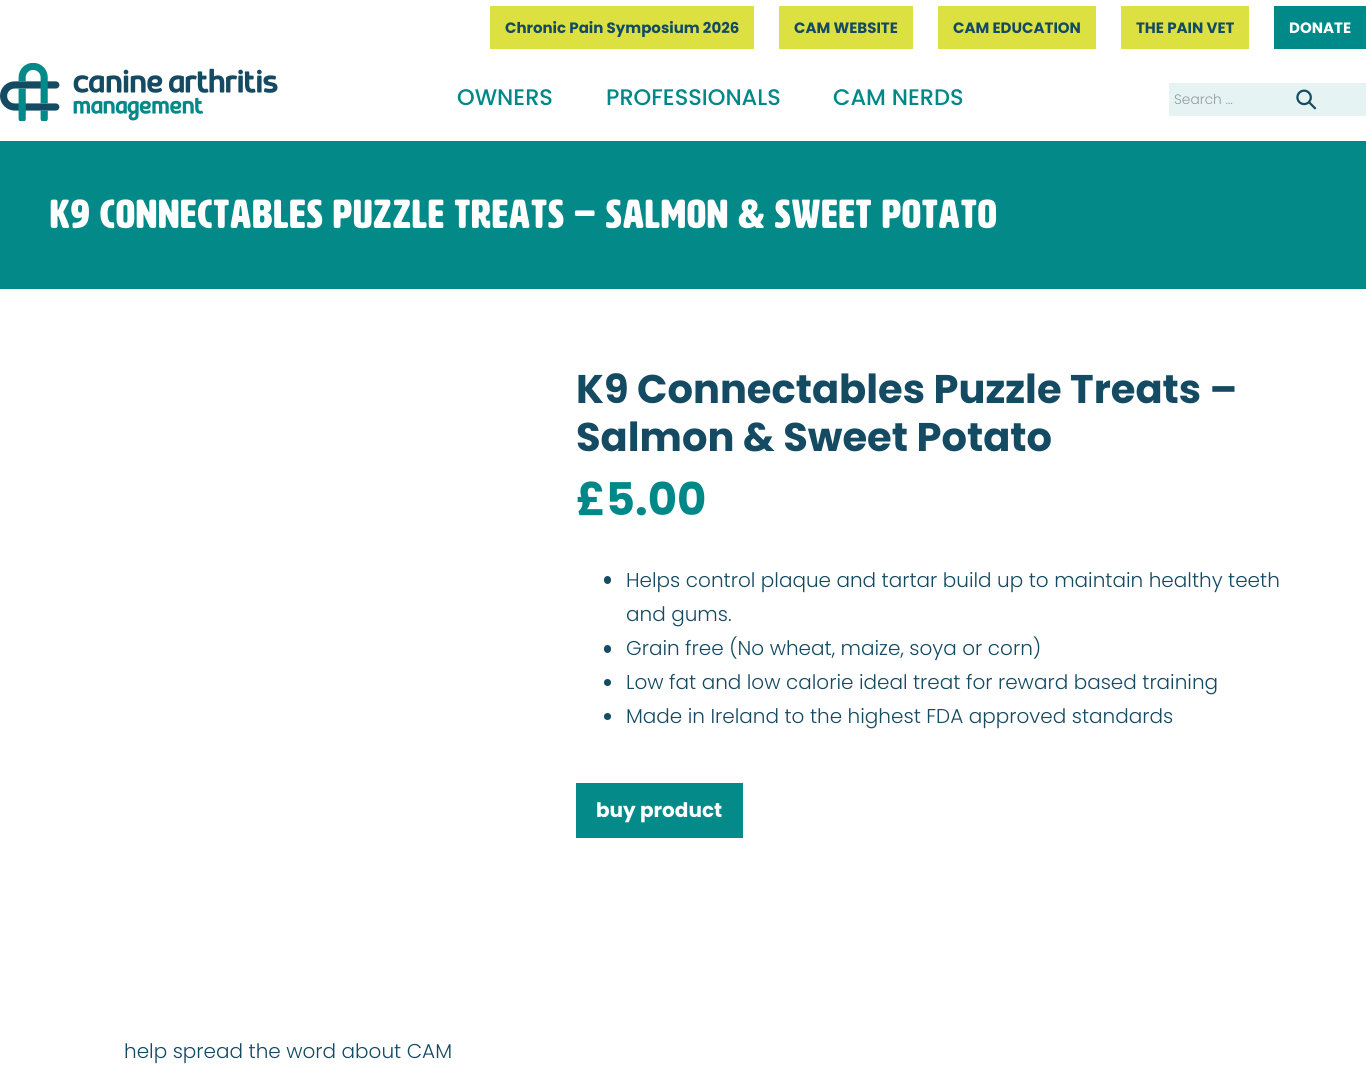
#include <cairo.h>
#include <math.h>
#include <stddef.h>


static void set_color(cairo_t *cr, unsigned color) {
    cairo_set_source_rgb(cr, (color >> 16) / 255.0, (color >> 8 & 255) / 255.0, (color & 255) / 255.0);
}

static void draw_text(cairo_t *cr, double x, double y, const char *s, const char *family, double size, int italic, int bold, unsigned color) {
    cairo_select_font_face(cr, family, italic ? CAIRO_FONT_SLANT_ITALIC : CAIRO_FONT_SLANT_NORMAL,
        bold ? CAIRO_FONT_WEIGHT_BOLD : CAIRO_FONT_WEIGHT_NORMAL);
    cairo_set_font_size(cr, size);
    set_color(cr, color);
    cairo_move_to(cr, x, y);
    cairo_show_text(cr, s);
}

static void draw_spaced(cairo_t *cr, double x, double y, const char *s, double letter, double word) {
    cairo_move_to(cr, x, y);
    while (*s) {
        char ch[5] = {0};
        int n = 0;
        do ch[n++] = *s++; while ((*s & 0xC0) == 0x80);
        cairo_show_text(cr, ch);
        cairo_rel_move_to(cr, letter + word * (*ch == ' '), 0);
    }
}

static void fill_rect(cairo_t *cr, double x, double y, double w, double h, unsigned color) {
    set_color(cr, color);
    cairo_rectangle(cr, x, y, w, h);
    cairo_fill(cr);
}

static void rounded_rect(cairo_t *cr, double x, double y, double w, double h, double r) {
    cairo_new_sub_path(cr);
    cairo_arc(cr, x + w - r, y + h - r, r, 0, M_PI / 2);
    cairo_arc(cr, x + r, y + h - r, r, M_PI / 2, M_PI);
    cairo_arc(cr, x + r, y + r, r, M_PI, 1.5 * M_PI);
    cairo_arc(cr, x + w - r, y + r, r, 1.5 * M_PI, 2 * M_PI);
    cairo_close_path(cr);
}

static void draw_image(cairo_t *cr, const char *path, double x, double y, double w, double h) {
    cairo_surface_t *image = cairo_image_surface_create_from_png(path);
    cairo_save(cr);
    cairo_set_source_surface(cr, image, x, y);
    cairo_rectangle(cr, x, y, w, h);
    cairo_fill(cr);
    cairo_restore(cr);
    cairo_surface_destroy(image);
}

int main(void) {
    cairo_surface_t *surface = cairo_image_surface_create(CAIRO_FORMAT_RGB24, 1366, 1081);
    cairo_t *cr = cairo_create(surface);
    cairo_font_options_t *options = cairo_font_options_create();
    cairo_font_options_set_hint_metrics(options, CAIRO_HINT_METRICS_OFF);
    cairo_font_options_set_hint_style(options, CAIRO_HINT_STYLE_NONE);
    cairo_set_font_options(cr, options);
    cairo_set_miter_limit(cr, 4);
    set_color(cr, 0xFFFFFF);
    cairo_paint(cr);
    fill_rect(cr, 490, 6, 264, 43, 0xDCE141);
    draw_text(cr, 505, 33, "Chronic Pain Symposium 2026", "Poppins", 15, 0, 1, 0x144B63);
    fill_rect(cr, 779, 6, 134, 43, 0xDCE141);
    draw_text(cr, 794, 33, "CAM WEBSITE", "Poppins", 15, 0, 1, 0x144B63);
    fill_rect(cr, 938, 6, 158, 43, 0xDCE141);
    draw_text(cr, 953, 33, "CAM EDUCATION", "Poppins", 15, 0, 1, 0x144B63);
    fill_rect(cr, 1121, 6, 128, 43, 0xDCE141);
    draw_text(cr, 1136, 33, "THE PAIN VET", "Poppins", 15, 0, 1, 0x144B63);
    fill_rect(cr, 1274, 6, 92, 43, 0x008989);
    draw_text(cr, 1289, 33, "DONATE", "Poppins", 15, 0, 1, 0xFFFFFF);
    draw_image(cr, "assets/img1.png", 0, 63, 278, 58);
    draw_text(cr, 457, 105, "OWNERS", "Poppins Medium", 22.5, 0, 0, 0x008889);
    draw_text(cr, 606, 105, "PROFESSIONALS", "Poppins Medium", 22.5, 0, 0, 0x008889);
    draw_text(cr, 833, 105, "CAM NERDS", "Poppins Medium", 22.5, 0, 0, 0x008889);
    fill_rect(cr, 1169, 83, 197, 33, 0xE6F3F3);
    draw_text(cr, 1174, 104, "Search …", "Poppins Light", 13.75, 0, 0, 0x929B9E);
    draw_image(cr, "assets/img2.png", 1296, 89, 21, 21);
    fill_rect(cr, 0, 141, 1366, 148, 0x048989);
    cairo_select_font_face(cr, "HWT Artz", CAIRO_FONT_SLANT_NORMAL, CAIRO_FONT_WEIGHT_BOLD);
    cairo_set_font_size(cr, 40);
    set_color(cr, 0xFFFFFF);
    draw_spaced(cr, 50, 228, "K9 Connectables Puzzle Treats – Salmon & Sweet Potato", 1.25, 0);
    draw_text(cr, 576, 403, "K9 Connectables Puzzle Treats –", "Poppins", 40, 0, 1, 0x144B63);
    draw_text(cr, 576, 451, "Salmon & Sweet Potato", "Poppins", 40, 0, 1, 0x144B63);
    draw_text(cr, 576, 515, "£5.00", "Poppins", 45, 0, 1, 0x008889);
    set_color(cr, 0x154B63);
    rounded_rect(cr, 604, 576, 7, 8, 3.5);
    cairo_fill(cr);
    draw_text(cr, 626, 587, "Helps control plaque and tartar build up to maintain healthy teeth", "Poppins Light", 20, 0, 0, 0x144B63);
    draw_text(cr, 626, 621, "and gums.", "Poppins Light", 20, 0, 0, 0x144B63);
    set_color(cr, 0x154B63);
    rounded_rect(cr, 604, 645, 7, 8, 3.5);
    cairo_fill(cr);
    draw_text(cr, 626, 655, "Grain free (No wheat, maize, soya or corn)", "Poppins Light", 20, 0, 0, 0x144B63);
    set_color(cr, 0x154B63);
    cairo_new_path(cr);
    cairo_arc(cr, 607.5, 682.5, 3.5, 0, 2 * M_PI);
    cairo_fill(cr);
    draw_text(cr, 626, 689, "Low fat and low calorie ideal treat for reward based training", "Poppins Light", 20, 0, 0, 0x144B63);
    set_color(cr, 0x154B63);
    cairo_new_path(cr);
    cairo_arc(cr, 607.5, 716.5, 3.5, 0, 2 * M_PI);
    cairo_fill(cr);
    draw_text(cr, 626, 723, "Made in Ireland to the highest FDA approved standards", "Poppins Light", 20, 0, 0, 0x144B63);
    fill_rect(cr, 576, 783, 167, 55, 0x058A8A);
    draw_text(cr, 596, 817, "buy product", "Poppins", 20, 0, 1, 0xFFFFFF);
    draw_text(cr, 124, 1058, "help spread the word about CAM", "Poppins Light", 20, 0, 0, 0x144B63);
    cairo_surface_write_to_png(surface, "output.png");
    cairo_font_options_destroy(options);
    cairo_destroy(cr);
    cairo_surface_destroy(surface);
    return 0;
}
